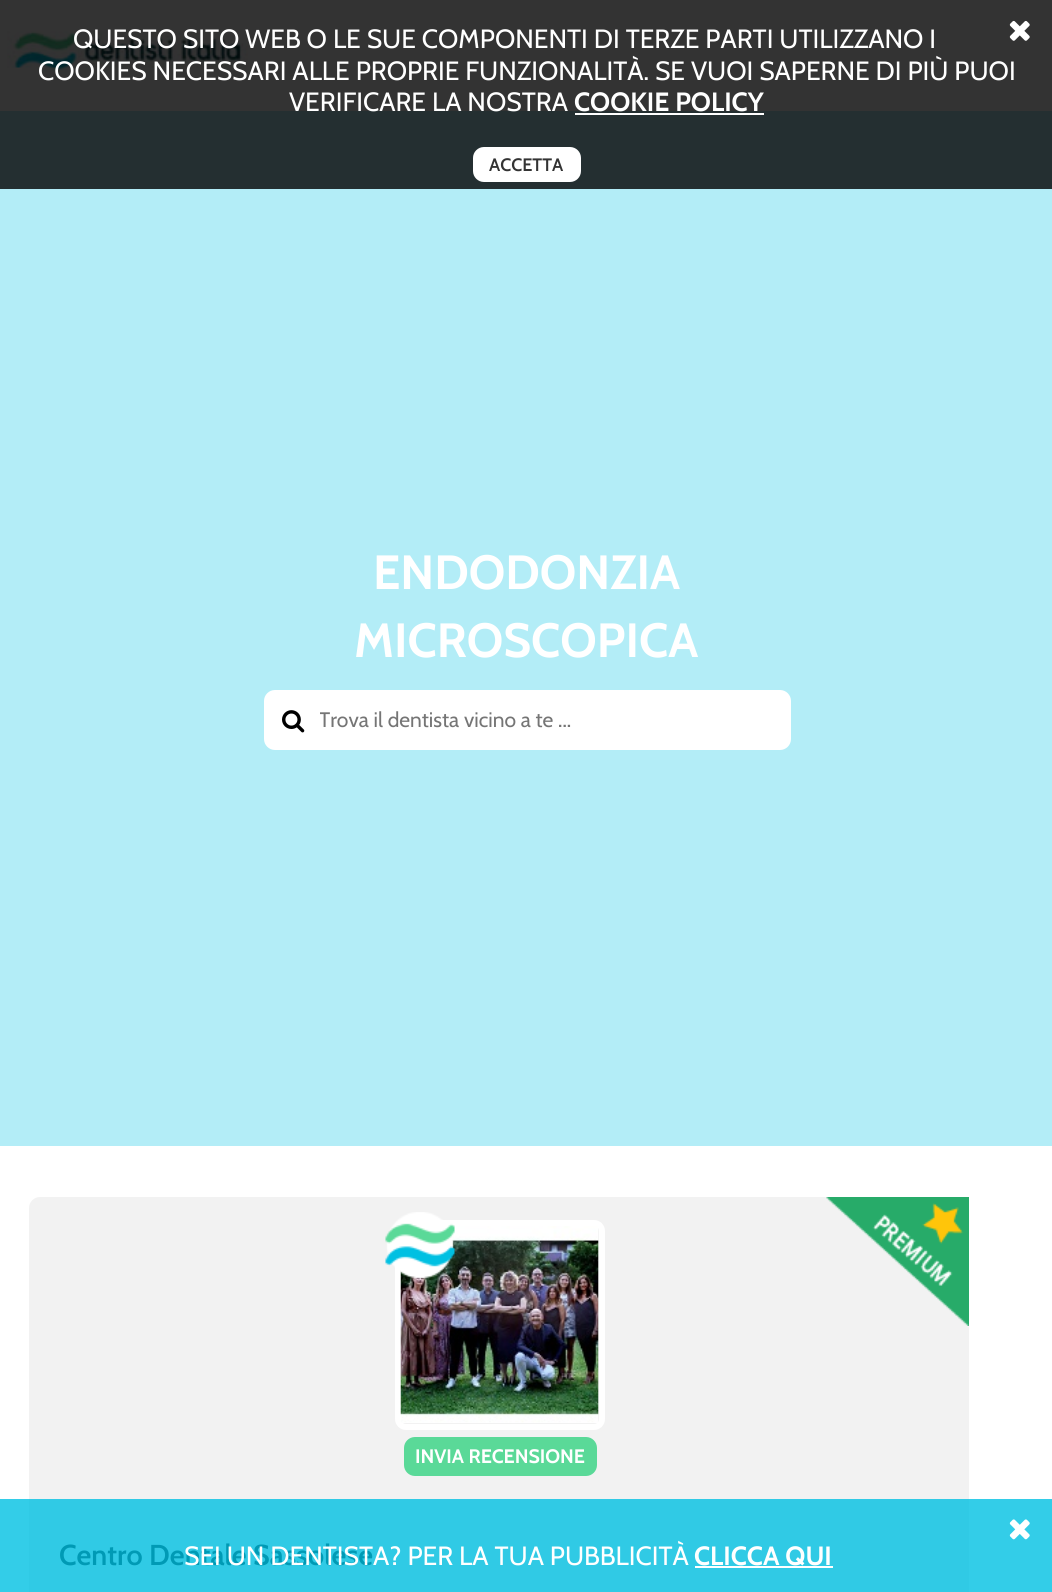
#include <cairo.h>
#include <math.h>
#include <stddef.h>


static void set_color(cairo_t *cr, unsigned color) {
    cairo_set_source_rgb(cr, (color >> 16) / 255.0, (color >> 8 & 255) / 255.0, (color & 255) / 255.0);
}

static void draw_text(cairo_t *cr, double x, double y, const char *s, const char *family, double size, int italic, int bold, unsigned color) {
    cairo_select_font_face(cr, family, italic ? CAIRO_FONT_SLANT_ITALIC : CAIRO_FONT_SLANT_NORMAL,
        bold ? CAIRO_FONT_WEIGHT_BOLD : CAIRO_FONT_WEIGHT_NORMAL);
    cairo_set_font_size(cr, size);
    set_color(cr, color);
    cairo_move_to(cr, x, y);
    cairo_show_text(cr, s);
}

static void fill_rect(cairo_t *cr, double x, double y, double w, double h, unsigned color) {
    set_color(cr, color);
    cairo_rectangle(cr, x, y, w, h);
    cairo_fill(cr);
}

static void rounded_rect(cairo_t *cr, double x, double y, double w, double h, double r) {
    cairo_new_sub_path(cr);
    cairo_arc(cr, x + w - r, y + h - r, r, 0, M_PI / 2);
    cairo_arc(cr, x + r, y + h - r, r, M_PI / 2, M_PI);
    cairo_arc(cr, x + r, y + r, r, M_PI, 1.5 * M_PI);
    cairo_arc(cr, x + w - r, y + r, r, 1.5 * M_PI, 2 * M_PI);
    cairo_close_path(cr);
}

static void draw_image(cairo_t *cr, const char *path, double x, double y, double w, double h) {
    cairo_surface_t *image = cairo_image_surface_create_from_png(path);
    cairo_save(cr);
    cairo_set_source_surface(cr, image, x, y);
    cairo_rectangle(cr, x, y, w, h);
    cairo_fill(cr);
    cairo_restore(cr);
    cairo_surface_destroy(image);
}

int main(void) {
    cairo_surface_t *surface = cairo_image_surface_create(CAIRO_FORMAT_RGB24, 1052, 1592);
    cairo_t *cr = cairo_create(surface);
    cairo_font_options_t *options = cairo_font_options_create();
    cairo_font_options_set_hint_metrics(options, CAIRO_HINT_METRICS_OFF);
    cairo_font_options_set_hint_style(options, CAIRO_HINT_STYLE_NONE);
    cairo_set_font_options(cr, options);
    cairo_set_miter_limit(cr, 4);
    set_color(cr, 0xFFFFFF);
    cairo_paint(cr);
    fill_rect(cr, 0, 1499, 1052, 93, 0x33CDE8);
    fill_rect(cr, 0, 0, 1052, 111, 0x333333);
    draw_image(cr, "assets/img2.png", 7, 31, 241, 49);
    draw_text(cr, 73, 48, "QUESTO SITO WEB O LE SUE COMPONENTI DI TERZE PARTI UTILIZZANO I", "Cabin", 26.4, 0, 0, 0xFFFFFF);
    draw_text(cr, 38, 80, "COOKIES NECESSARI ALLE PROPRIE FUNZIONALITÀ. SE VUOI SAPERNE DI PIÙ PUOI", "Cabin", 26.4, 0, 0, 0xFFFFFF);
    fill_rect(cr, 0, 111, 1052, 78, 0x242F31);
    draw_text(cr, 289, 111, "VERIFICARE LA NOSTRA", "Cabin", 26.4, 0, 0, 0xFFFFFF);
    draw_text(cr, 574, 111, "COOKIE POLICY", "Cabin", 26.4, 0, 1, 0xFFFFFF);
    fill_rect(cr, 575, 113, 189, 2, 0xFFFFFF);
    draw_image(cr, "assets/img1.png", 1009, 20, 21, 21);
    rounded_rect(cr, 473, 147, 108, 35, 11);
    cairo_fill(cr);
    draw_text(cr, 489, 171, "ACCETTA", "Cabin SemiBold", 18, 0, 0, 0x333333);
    fill_rect(cr, 0, 189, 1052, 957, 0xB3EDF7);
    draw_text(cr, 373, 589, "ENDODONZIA", "Cabin", 48, 0, 1, 0xFFFFFF);
    draw_text(cr, 354, 657, "MICROSCOPICA", "Cabin", 48, 0, 1, 0xFFFFFF);
    rounded_rect(cr, 264, 690, 527, 60, 11);
    cairo_fill(cr);
    draw_image(cr, "assets/img3.png", 282, 710, 23, 23);
    cairo_save(cr);
    cairo_rectangle(cr, 320, 707, 454, 27);
    cairo_clip(cr);
    draw_text(cr, 319, 727, "Trova il dentista vicino a te ...", "Cabin", 21, 0, 0, 0x757575);
    cairo_restore(cr);
    set_color(cr, 0xF2F2F2);
    rounded_rect(cr, 29, 1197, 940, 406, 11);
    cairo_fill(cr);
    fill_rect(cr, 29, 1499, 940, 93, 0x30CAE5);
    draw_image(cr, "assets/img4.png", 826, 1197, 143, 129);
    rounded_rect(cr, 398, 1223, 204, 204, 8);
    set_color(cr, 0xFFFFFF);
    cairo_set_line_width(cr, 6);
    cairo_stroke(cr);
    draw_image(cr, "assets/img6.png", 400, 1226, 199, 197);
    draw_image(cr, "assets/img5.png", 385, 1212, 70, 67);
    set_color(cr, 0x5AD998);
    rounded_rect(cr, 405, 1438, 191, 37, 10);
    cairo_fill_preserve(cr);
    cairo_set_line_width(cr, 2);
    cairo_stroke(cr);
    draw_text(cr, 415, 1463, "INVIA RECENSIONE", "Cabin", 19.5, 0, 1, 0xFFFFFF);
    draw_text(cr, 59, 1565, "Centro Dentale Sassolese", "Cabin SemiBold", 28.75, 0, 0, 0x009AB5);
    draw_image(cr, "assets/img7.png", 1009, 1519, 21, 21);
    draw_text(cr, 184, 1565, "SEI UN DENTISTA? PER LA TUA PUBBLICITÀ", "Cabin", 26.4, 0, 0, 0xFFFFFF);
    draw_text(cr, 694, 1565, "CLICCA QUI", "Cabin", 26.4, 0, 1, 0xFFFFFF);
    fill_rect(cr, 695, 1566, 138, 2, 0xFFFFFF);
    cairo_surface_write_to_png(surface, "output.png");
    cairo_font_options_destroy(options);
    cairo_destroy(cr);
    cairo_surface_destroy(surface);
    return 0;
}
